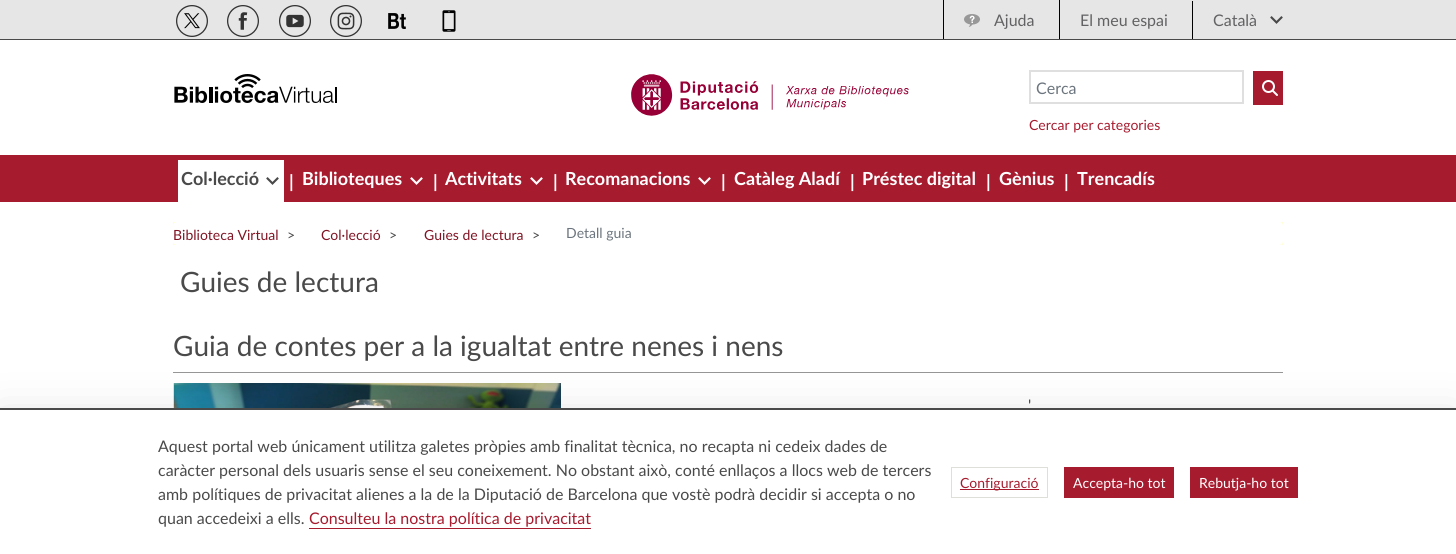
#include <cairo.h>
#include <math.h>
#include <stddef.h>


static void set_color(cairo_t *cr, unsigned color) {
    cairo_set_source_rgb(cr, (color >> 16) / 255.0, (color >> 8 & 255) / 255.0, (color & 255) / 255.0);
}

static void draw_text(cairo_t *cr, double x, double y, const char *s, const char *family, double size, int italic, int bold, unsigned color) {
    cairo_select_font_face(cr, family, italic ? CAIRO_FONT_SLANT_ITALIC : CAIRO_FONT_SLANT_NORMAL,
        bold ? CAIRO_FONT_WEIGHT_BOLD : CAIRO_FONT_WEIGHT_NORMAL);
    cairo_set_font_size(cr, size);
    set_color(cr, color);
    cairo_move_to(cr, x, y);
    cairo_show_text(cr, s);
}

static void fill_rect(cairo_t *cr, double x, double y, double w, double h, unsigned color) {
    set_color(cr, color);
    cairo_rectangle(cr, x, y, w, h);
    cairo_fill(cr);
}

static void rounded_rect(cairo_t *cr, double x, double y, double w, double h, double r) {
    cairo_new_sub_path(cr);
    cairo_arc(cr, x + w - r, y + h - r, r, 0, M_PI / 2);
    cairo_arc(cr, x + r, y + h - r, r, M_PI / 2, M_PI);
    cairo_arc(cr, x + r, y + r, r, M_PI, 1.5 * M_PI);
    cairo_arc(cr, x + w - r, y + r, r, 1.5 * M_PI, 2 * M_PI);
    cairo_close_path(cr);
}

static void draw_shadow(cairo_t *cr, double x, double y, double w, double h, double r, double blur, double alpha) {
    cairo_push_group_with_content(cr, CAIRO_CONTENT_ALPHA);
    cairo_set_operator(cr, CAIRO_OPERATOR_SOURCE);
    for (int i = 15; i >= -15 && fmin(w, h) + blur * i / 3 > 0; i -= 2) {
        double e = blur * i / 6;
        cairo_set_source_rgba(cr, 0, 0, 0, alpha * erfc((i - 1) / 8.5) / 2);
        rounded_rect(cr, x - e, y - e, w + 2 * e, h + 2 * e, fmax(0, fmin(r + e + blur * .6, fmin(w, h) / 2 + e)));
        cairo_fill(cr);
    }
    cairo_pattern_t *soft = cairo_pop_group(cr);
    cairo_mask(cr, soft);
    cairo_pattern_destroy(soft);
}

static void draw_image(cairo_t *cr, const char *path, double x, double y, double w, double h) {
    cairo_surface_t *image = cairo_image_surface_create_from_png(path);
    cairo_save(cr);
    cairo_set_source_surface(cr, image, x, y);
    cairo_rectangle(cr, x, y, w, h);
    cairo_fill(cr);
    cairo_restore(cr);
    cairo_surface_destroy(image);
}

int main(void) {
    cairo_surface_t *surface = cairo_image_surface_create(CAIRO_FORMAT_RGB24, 1456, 554);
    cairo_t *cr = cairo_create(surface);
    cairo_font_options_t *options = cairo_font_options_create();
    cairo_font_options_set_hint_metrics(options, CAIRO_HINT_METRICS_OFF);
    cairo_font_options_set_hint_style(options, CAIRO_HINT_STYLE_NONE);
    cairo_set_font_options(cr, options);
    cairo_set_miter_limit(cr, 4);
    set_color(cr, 0xFFFFFF);
    cairo_paint(cr);
    fill_rect(cr, 0, 0, 1456, 39, 0xE6E6E6);
    fill_rect(cr, 0, 39, 1456, 1, 0x4A4A4A);
    draw_image(cr, "assets/img1.png", 176, 5, 32, 32);
    draw_image(cr, "assets/img2.png", 227, 5, 32, 32);
    draw_image(cr, "assets/img3.png", 279, 5, 32, 32);
    draw_image(cr, "assets/img4.png", 330, 5, 32, 32);
    draw_image(cr, "assets/img5.png", 388, 13, 18, 16);
    draw_image(cr, "assets/img6.png", 442, 10, 14, 22);
    fill_rect(cr, 943, 0, 1, 39, 0x000000);
    draw_image(cr, "assets/img7.png", 964, 14, 16, 13);
    draw_text(cr, 994, 26, "Ajuda", "Lato", 16, 0, 0, 0x626264);
    fill_rect(cr, 1059, 0, 1, 39, 0x000000);
    draw_text(cr, 1080, 26, "El meu espai", "Lato", 16, 0, 0, 0x626264);
    fill_rect(cr, 1192, 1, 1, 38, 0x000000);
    draw_image(cr, "assets/img8.png", 1270, 16, 13, 8);
    draw_text(cr, 1213, 26, "Català", "Lato", 16, 0, 0, 0x626264);
    draw_image(cr, "assets/img9.png", 174, 74, 163, 29);
    draw_image(cr, "assets/img10.png", 631, 74, 278, 42);
    cairo_rectangle(cr, 1030, 71, 213, 32);
    set_color(cr, 0xDFDFDF);
    cairo_stroke(cr);
    draw_text(cr, 1036, 94, "Cerca", "Lato", 16, 0, 0, 0x6C757D);
    fill_rect(cr, 1253, 71, 30, 34, 0xA71B2E);
    draw_image(cr, "assets/img11.png", 1262, 80, 16, 16);
    draw_text(cr, 1029, 130, "Cercar per categories", "Lato", 14, 0, 0, 0xA71B2E);
    fill_rect(cr, 0, 155, 1456, 47, 0xA71B2E);
    fill_rect(cr, 178, 160, 106, 42, 0xFFFFFF);
    draw_text(cr, 181, 185, "Col·lecció", "Lato", 18, 0, 1, 0x4A4A4A);
    draw_image(cr, "assets/img12.png", 266, 177, 13, 8);
    draw_text(cr, 289, 188, "|", "Lato", 18, 0, 1, 0xFFFFFF);
    draw_text(cr, 302, 185, "Biblioteques", "Lato", 18, 0, 1, 0xFFFFFF);
    draw_image(cr, "assets/img13.png", 410, 177, 13, 8);
    draw_text(cr, 433, 188, "|", "Lato", 18, 0, 1, 0xFFFFFF);
    draw_text(cr, 445, 185, "Activitats", "Lato", 18, 0, 1, 0xFFFFFF);
    draw_image(cr, "assets/img13.png", 530, 177, 13, 8);
    draw_text(cr, 553, 188, "|", "Lato", 18, 0, 1, 0xFFFFFF);
    draw_text(cr, 565, 185, "Recomanacions", "Lato", 18, 0, 1, 0xFFFFFF);
    draw_image(cr, "assets/img13.png", 698, 177, 13, 8);
    draw_text(cr, 721, 188, "|", "Lato", 18, 0, 1, 0xFFFFFF);
    draw_text(cr, 734, 185, "Catàleg Aladí", "Lato", 18, 0, 1, 0xFFFFFF);
    draw_text(cr, 850, 188, "|", "Lato", 18, 0, 1, 0xFFFFFF);
    draw_text(cr, 862, 185, "Préstec digital", "Lato", 18, 0, 1, 0xFFFFFF);
    draw_text(cr, 986, 188, "|", "Lato", 18, 0, 1, 0xFFFFFF);
    draw_text(cr, 999, 185, "Gènius", "Lato", 18, 0, 1, 0xFFFFFF);
    draw_text(cr, 1064, 188, "|", "Lato", 18, 0, 1, 0xFFFFFF);
    draw_text(cr, 1077, 185, "Trencadís", "Lato", 18, 0, 1, 0xFFFFFF);
    fill_rect(cr, 173, 222, 1110, 23, 0xFFFED9);
    set_color(cr, 0xFFFFFF);
    rounded_rect(cr, 173, 222, 1110, 23, 4);
    cairo_fill(cr);
    draw_text(cr, 173, 240, "Biblioteca Virtual", "Lato", 14, 0, 0, 0x811424);
    draw_text(cr, 287, 240, ">", "Lato", 14, 0, 0, 0x4A4A4A);
    draw_text(cr, 321, 240, "Col·lecció", "Lato", 14, 0, 0, 0x811424);
    draw_text(cr, 389, 240, ">", "Lato", 14, 0, 0, 0x4A4A4A);
    draw_text(cr, 424, 240, "Guies de lectura", "Lato", 14, 0, 0, 0x811424);
    draw_text(cr, 532, 240, ">", "Lato", 14, 0, 0, 0x4A4A4A);
    draw_text(cr, 566, 238, "Detall guia", "Lato", 14, 0, 0, 0x6C757D);
    draw_text(cr, 180, 292, "Guies de lectura", "Lato", 28, 0, 0, 0x4A4A4A);
    fill_rect(cr, 173, 372, 1110, 1, 0x979797);
    draw_text(cr, 173, 356, "Guia de contes per a la igualtat entre nenes i nens", "Lato", 28, 0, 0, 0x4A4A4A);
    draw_image(cr, "assets/img14.png", 173, 383, 388, 25);
    draw_text(cr, 1028, 411, "'", "Lato", 16, 0, 0, 0x4A4A4A);
    set_color(cr, 0x000000);
    draw_shadow(cr, 0, 424, 1456, 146, 0, 24, 0.18);
    fill_rect(cr, 0, 410, 1456, 144, 0xFFFFFF);
    fill_rect(cr, 0, 408, 1456, 2, 0x4A4A4A);
    draw_text(cr, 158, 452, "Aquest portal web únicament utilitza galetes pròpies amb finalitat tècnica, no recapta ni cedeix dades de", "Lato", 16, 0, 0, 0x4A4A4A);
    draw_text(cr, 158, 476, "caràcter personal dels usuaris sense el seu coneixement. No obstant això, conté enllaços a llocs web de tercers", "Lato", 16, 0, 0, 0x4A4A4A);
    draw_text(cr, 158, 500, "amb polítiques de privacitat alienes a la de la Diputació de Barcelona que vostè podrà decidir si accepta o no", "Lato", 16, 0, 0, 0x4A4A4A);
    draw_text(cr, 158, 524, "quan accedeixi a ells.", "Lato", 16, 0, 0, 0x4A4A4A);
    draw_text(cr, 309, 524, "Consulteu la nostra política de privacitat", "Lato", 16, 0, 0, 0xA71B2E);
    fill_rect(cr, 309, 528, 282, 1, 0xA71B2E);
    cairo_rectangle(cr, 951.5, 467.5, 96, 30);
    set_color(cr, 0xDFDFDA);
    cairo_set_line_width(cr, 1);
    cairo_stroke(cr);
    fill_rect(cr, 960, 489, 79, 1, 0xA71B2E);
    draw_text(cr, 960, 488, "Configuració", "Lato", 14, 0, 0, 0xA71B2E);
    fill_rect(cr, 1064, 467, 110, 31, 0xA71B2E);
    draw_text(cr, 1073, 488, "Accepta-ho tot", "Lato", 14, 0, 0, 0xFFFFFF);
    fill_rect(cr, 1190, 467, 108, 31, 0xA71B2E);
    draw_text(cr, 1199, 488, "Rebutja-ho tot", "Lato", 14, 0, 0, 0xFFFFFF);
    cairo_surface_write_to_png(surface, "output.png");
    cairo_font_options_destroy(options);
    cairo_destroy(cr);
    cairo_surface_destroy(surface);
    return 0;
}
